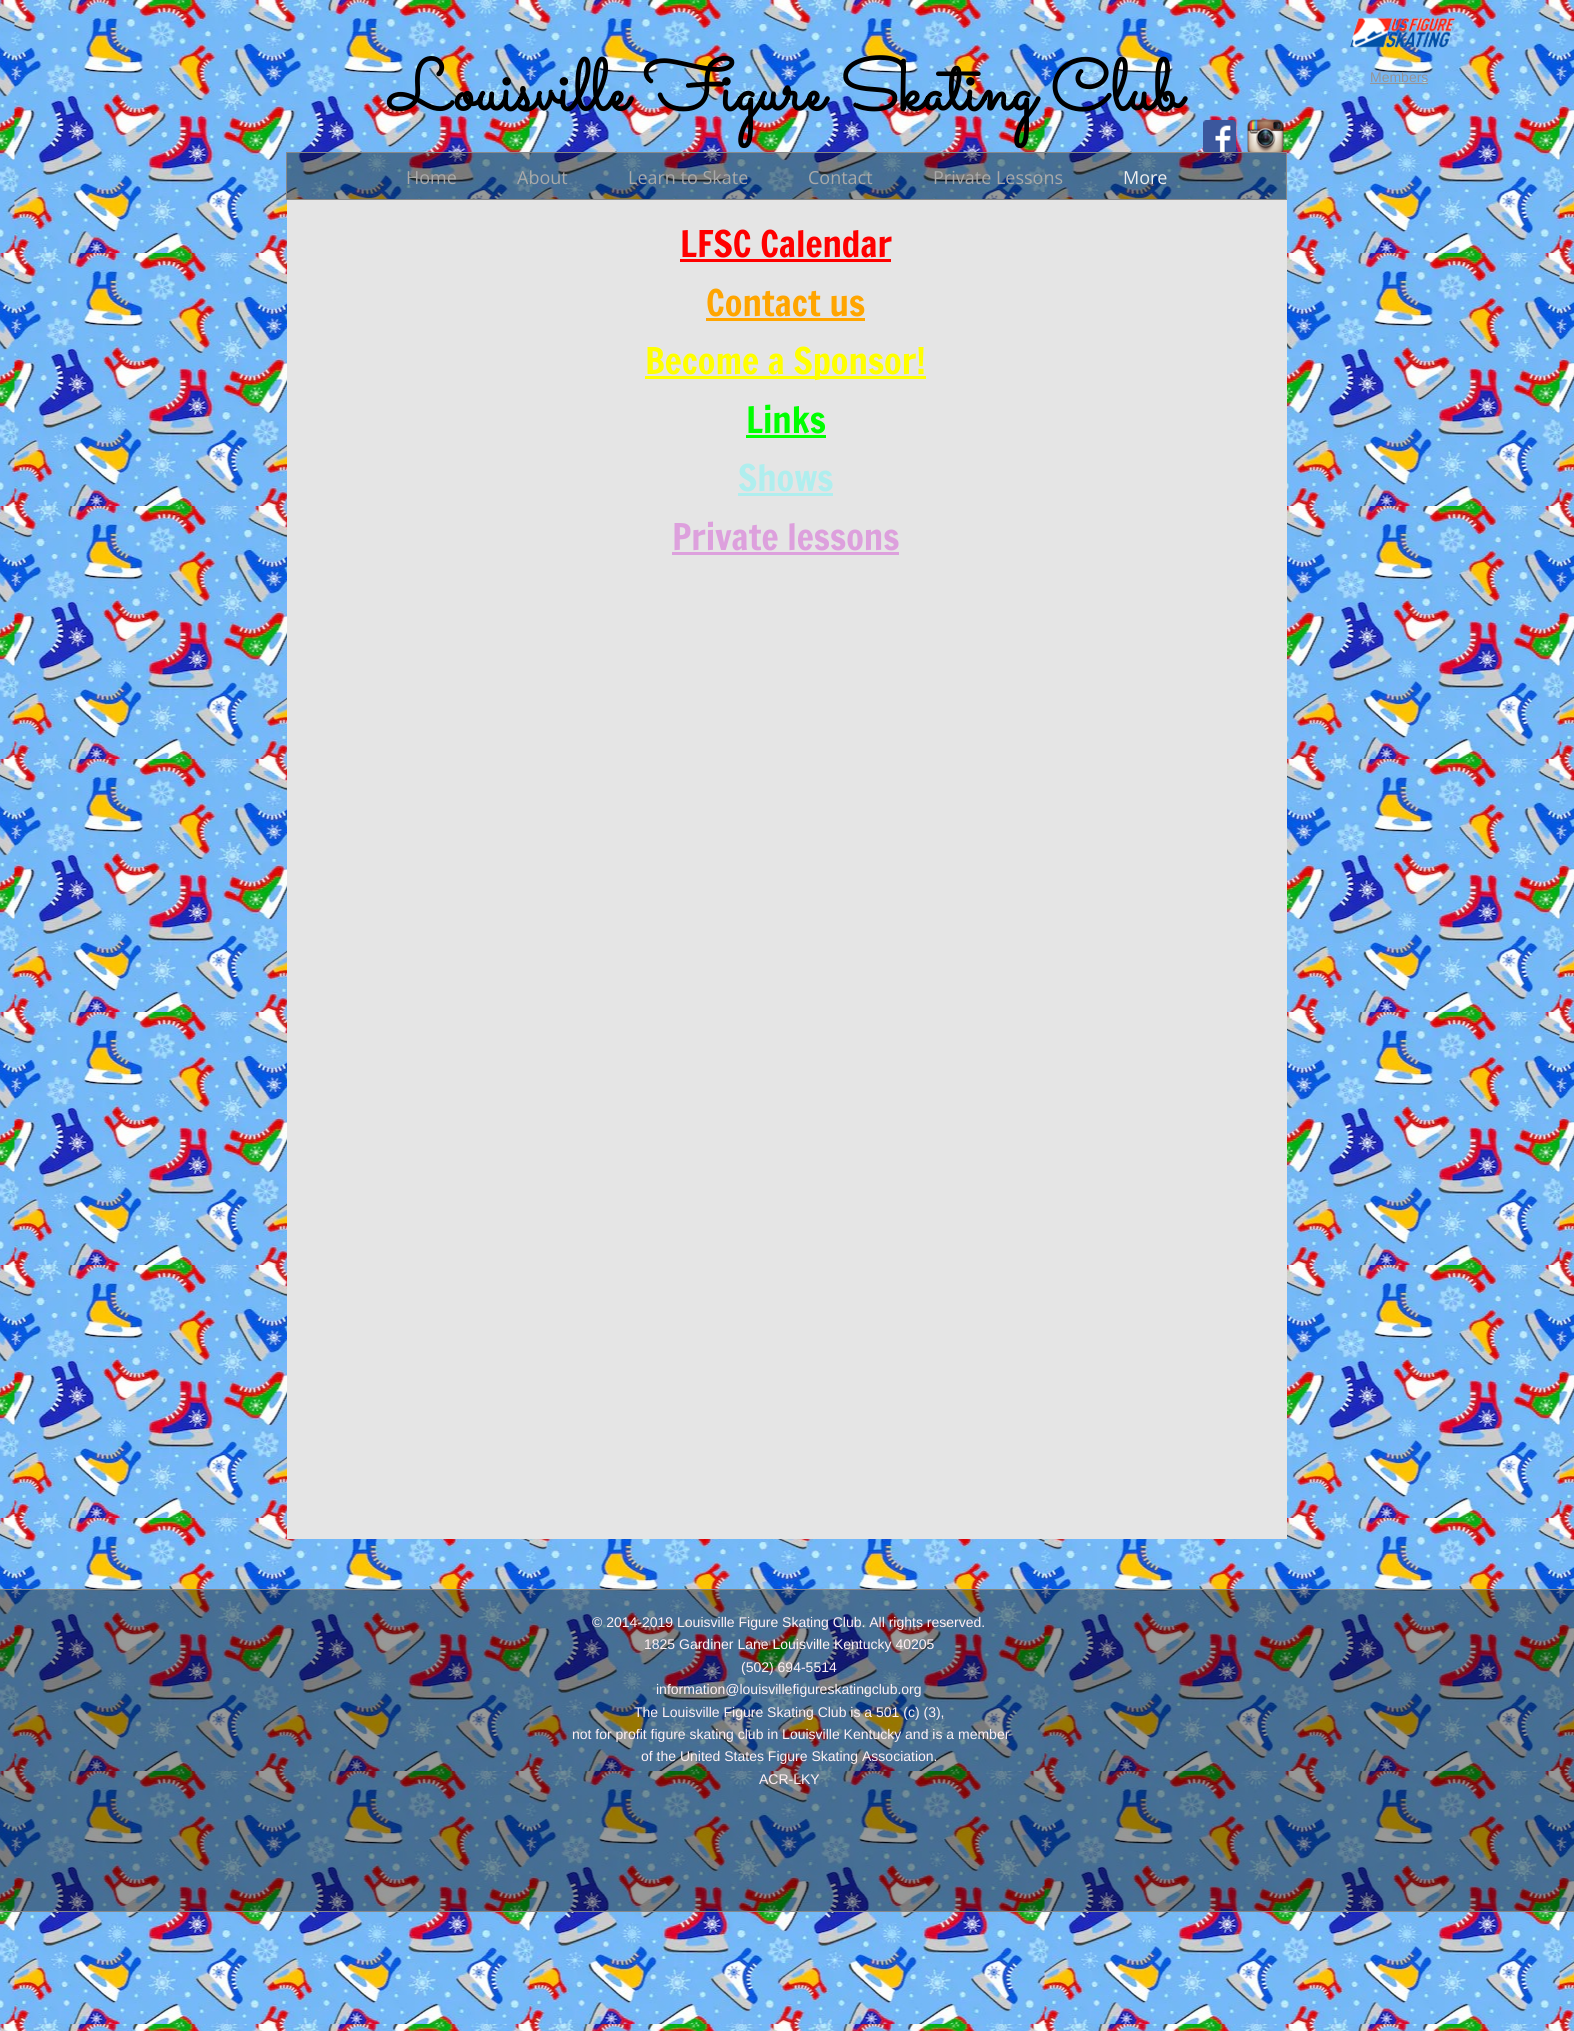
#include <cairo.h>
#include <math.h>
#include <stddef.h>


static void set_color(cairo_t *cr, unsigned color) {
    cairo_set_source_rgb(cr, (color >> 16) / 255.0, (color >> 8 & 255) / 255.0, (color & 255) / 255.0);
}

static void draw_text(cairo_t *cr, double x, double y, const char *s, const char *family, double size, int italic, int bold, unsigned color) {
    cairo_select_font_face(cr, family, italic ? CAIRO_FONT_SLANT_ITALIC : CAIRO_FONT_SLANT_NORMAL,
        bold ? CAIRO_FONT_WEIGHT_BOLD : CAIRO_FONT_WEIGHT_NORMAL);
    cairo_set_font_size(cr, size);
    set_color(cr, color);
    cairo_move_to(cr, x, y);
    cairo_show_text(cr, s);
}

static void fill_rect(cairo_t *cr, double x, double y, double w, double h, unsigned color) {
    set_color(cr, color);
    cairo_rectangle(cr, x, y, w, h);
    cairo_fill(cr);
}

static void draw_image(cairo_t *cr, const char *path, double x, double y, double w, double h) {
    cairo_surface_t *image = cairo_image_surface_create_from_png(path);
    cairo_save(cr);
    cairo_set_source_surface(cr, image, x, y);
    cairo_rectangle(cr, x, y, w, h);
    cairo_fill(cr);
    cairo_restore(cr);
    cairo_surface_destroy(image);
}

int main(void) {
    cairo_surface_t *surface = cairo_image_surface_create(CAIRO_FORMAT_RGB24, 1574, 2031);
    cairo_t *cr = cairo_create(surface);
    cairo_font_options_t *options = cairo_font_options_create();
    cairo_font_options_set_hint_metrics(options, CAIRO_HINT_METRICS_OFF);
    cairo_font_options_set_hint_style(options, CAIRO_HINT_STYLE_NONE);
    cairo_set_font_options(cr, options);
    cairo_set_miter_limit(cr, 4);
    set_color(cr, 0xFFFFFF);
    cairo_paint(cr);
    draw_image(cr, "assets/img1.png", 0, 0, 1574, 2031);
    fill_rect(cr, 287, 200, 1000, 1339, 0xE5E5E5);
    draw_image(cr, "assets/img2.png", 1350, 17, 105, 32);
    draw_text(cr, 389, 110, "Louisville Figure Skating Club", "Sacramento", 72, 0, 1, 0x000000);
    draw_text(cr, 1370, 82, "Members", "Liberation Sans", 14, 0, 0, 0x979395);
    fill_rect(cr, 1370, 83, 58, 1, 0x979395);
    draw_image(cr, "assets/img3.png", 1203, 120, 33, 32);
    draw_image(cr, "assets/img4.png", 1247, 119, 37, 33);
    cairo_set_source_rgba(cr, 0, 0, 0, 0.4);
    cairo_rectangle(cr, 286.5, 152.5, 1000, 47);
    cairo_fill_preserve(cr);
    set_color(cr, 0x888888);
    cairo_set_line_width(cr, 1);
    cairo_stroke(cr);
    draw_text(cr, 406, 184, "Home", "Open Sans", 18, 0, 0, 0xAAAAAA);
    draw_text(cr, 517, 184, "About", "Open Sans", 18, 0, 0, 0xAAAAAA);
    draw_text(cr, 628, 184, "Learn to Skate", "Open Sans", 18, 0, 0, 0xAAAAAA);
    draw_text(cr, 808, 184, "Contact", "Open Sans", 18, 0, 0, 0xAAAAAA);
    draw_text(cr, 933, 184, "Private Lessons", "Open Sans", 18, 0, 0, 0xAAAAAA);
    draw_text(cr, 1123, 184, "More", "Open Sans", 18, 0, 0, 0xEFEFEF);
    draw_text(cr, 680, 257, "LFSC Calendar", "Francois One", 36, 0, 0, 0xFF0000);
    fill_rect(cr, 680, 259, 211, 3, 0xFF0000);
    draw_text(cr, 706, 316, "Contact us", "Francois One", 36, 0, 0, 0xFFA500);
    fill_rect(cr, 706, 318, 159, 3, 0xFFA500);
    fill_rect(cr, 645, 376, 281, 3, 0xFFFF00);
    draw_text(cr, 645, 374, "Become a Sponsor!", "Francois One", 36, 0, 0, 0xFFFF00);
    draw_text(cr, 746, 433, "Links", "Francois One", 36, 0, 0, 0x00FF00);
    fill_rect(cr, 746, 435, 80, 3, 0x00FF00);
    draw_text(cr, 738, 491, "Shows", "Francois One", 36, 0, 0, 0xAFEEEE);
    fill_rect(cr, 738, 493, 95, 3, 0xAFEEEE);
    draw_text(cr, 672, 550, "Private lessons", "Francois One", 36, 0, 0, 0xDDA0DD);
    fill_rect(cr, 672, 552, 227, 3, 0xDDA0DD);
    cairo_set_source_rgba(cr, 0, 0, 0, 0.4);
    cairo_rectangle(cr, 0, 1590, 1574, 321);
    cairo_fill(cr);
    fill_rect(cr, 0, 1589, 1574, 1, 0x888888);
    fill_rect(cr, 0, 1911, 1574, 1, 0x888888);
    draw_text(cr, 592, 1627, "© 2014-2019 Louisville Figure Skating Club. All rights reserved.", "Liberation Sans", 14, 0, 0, 0xFFF0F5);
    draw_text(cr, 644, 1649, "1825 Gardiner Lane Louisville Kentucky 40205", "Liberation Sans", 14, 0, 0, 0xFFF0F5);
    draw_text(cr, 741, 1672, "(502) 694-5514", "Liberation Sans", 14, 0, 0, 0xFFF0F5);
    draw_text(cr, 656, 1694, "information@louisvillefigureskatingclub.org", "Liberation Sans", 14, 0, 0, 0xFFF0F5);
    draw_text(cr, 634, 1717, "The Louisville Figure Skating Club is a 501 (c) (3),", "Liberation Sans", 14, 0, 0, 0xFFF0F5);
    draw_text(cr, 572, 1739, "not for profit figure skating club in Louisville Kentucky and is a member", "Liberation Sans", 14, 0, 0, 0xFFF0F5);
    draw_text(cr, 641, 1761, "of the United States Figure Skating Association.", "Liberation Sans", 14, 0, 0, 0xFFF0F5);
    draw_text(cr, 759, 1784, "ACR-LKY", "Liberation Sans", 14, 0, 0, 0xFFF0F5);
    cairo_surface_write_to_png(surface, "output.png");
    cairo_font_options_destroy(options);
    cairo_destroy(cr);
    cairo_surface_destroy(surface);
    return 0;
}
